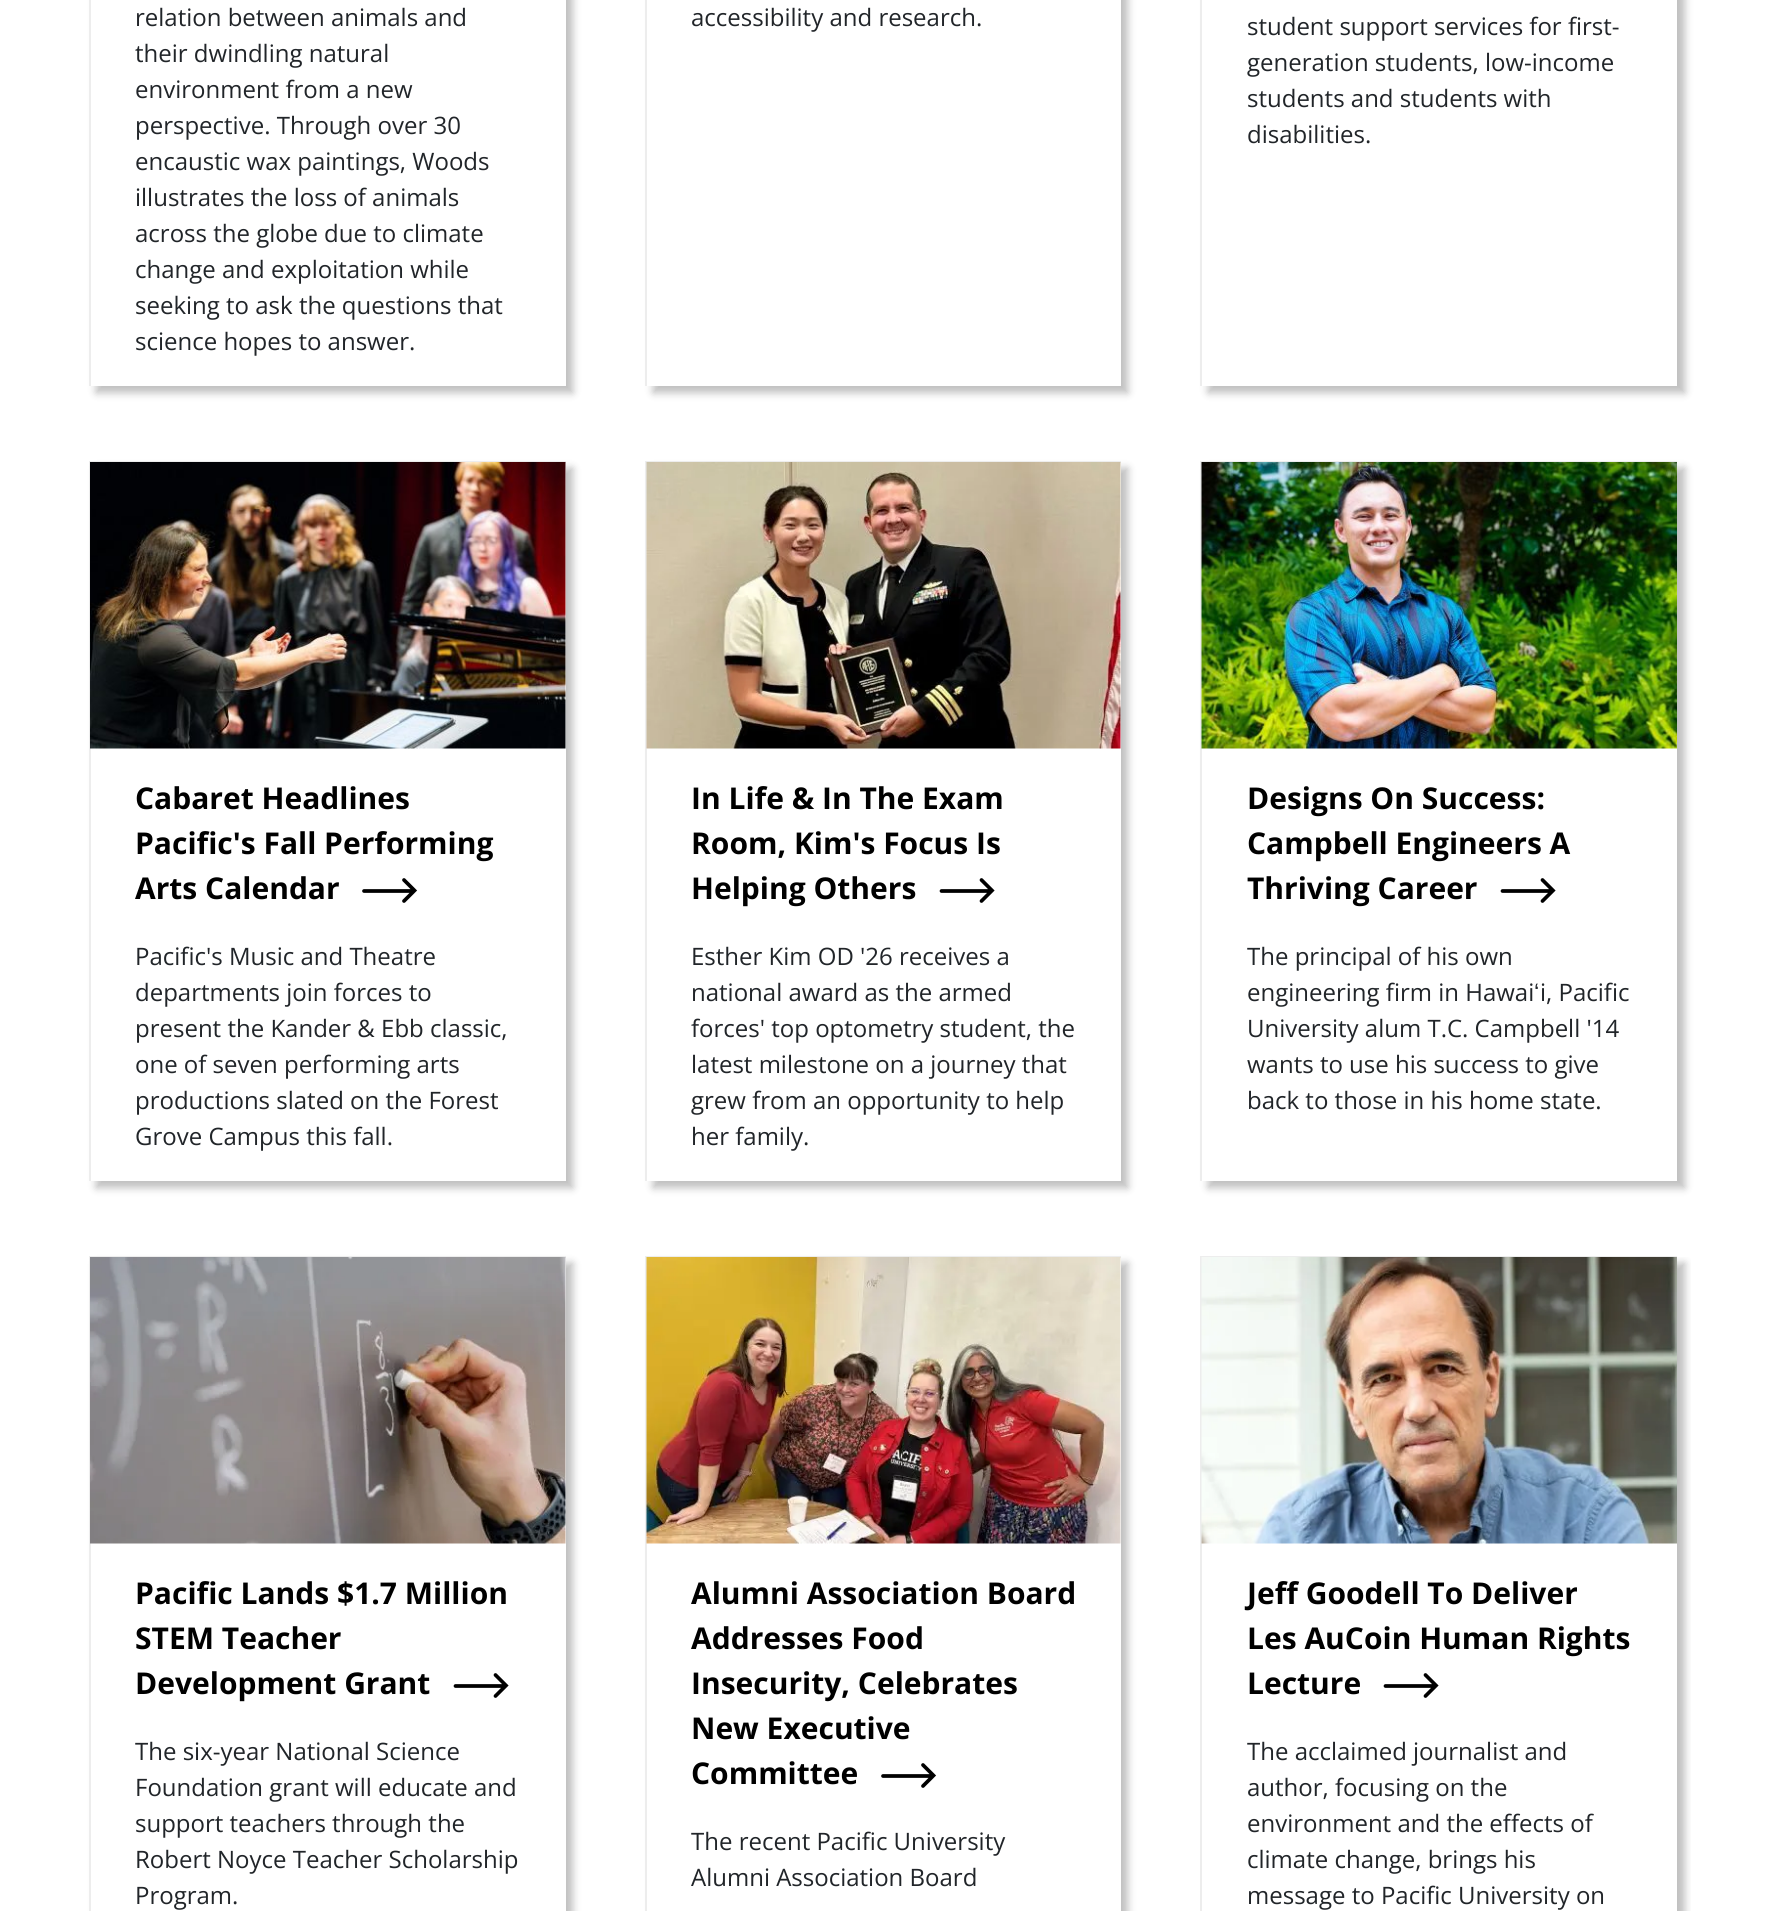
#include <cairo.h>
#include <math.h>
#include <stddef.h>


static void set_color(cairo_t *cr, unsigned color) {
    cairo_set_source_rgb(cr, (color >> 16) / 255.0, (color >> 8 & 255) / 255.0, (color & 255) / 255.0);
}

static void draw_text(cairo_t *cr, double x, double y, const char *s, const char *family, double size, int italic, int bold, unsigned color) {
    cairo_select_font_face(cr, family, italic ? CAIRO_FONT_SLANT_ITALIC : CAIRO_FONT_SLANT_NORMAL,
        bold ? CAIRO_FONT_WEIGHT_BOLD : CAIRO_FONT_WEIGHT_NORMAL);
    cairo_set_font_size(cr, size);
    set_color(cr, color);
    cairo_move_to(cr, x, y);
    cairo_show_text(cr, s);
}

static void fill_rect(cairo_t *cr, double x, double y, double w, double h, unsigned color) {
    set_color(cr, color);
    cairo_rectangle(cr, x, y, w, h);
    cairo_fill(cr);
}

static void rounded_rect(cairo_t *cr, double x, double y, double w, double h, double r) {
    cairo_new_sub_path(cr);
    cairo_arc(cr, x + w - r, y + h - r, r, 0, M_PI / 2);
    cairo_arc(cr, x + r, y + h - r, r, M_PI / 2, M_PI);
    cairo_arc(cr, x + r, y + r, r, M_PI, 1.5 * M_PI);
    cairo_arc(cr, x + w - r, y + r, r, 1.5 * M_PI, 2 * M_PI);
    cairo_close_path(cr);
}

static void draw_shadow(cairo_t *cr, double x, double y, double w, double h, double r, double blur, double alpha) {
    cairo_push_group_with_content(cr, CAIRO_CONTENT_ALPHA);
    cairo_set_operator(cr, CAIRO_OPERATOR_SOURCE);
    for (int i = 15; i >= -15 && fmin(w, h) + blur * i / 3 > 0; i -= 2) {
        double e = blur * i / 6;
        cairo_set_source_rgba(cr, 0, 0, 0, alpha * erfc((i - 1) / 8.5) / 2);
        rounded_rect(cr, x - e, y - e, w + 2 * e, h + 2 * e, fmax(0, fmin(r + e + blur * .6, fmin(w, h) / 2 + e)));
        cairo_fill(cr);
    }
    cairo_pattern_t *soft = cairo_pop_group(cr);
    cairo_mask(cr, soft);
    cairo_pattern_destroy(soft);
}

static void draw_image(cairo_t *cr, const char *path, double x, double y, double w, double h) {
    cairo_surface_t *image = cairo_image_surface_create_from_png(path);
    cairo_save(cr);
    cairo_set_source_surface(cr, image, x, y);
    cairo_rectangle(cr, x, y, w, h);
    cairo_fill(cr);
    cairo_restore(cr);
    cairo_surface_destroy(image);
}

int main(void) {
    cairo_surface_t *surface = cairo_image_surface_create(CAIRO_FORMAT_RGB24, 1765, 1911);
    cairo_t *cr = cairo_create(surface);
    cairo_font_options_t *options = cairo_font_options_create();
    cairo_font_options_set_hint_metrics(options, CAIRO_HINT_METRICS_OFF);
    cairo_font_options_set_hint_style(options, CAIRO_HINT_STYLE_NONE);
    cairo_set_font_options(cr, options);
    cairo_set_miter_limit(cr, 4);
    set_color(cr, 0xFFFFFF);
    cairo_paint(cr);
    cairo_save(cr);
    cairo_set_fill_rule(cr, CAIRO_FILL_RULE_EVEN_ODD);
    cairo_new_path(cr);
    cairo_move_to(cr, 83, 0);
    cairo_line_to(cr, 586, 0);
    cairo_line_to(cr, 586, 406);
    cairo_line_to(cr, 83, 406);
    cairo_close_path(cr);
    cairo_move_to(cr, 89, -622);
    cairo_line_to(cr, 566, -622);
    cairo_line_to(cr, 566, 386);
    cairo_line_to(cr, 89, 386);
    cairo_close_path(cr);
    cairo_clip(cr);
    set_color(cr, 0x000000);
    draw_shadow(cr, 96, -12, 477, 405, 0, 4, 0.25);
    cairo_restore(cr);
    fill_rect(cr, 89, 0, 2, 386, 0xEDEDED);
    draw_text(cr, 135, 26, "relation between animals and", "Open Sans", 24, 0, 0, 0x212529);
    draw_text(cr, 135, 62, "their dwindling natural", "Open Sans", 24, 0, 0, 0x212529);
    draw_text(cr, 135, 98, "environment from a new", "Open Sans", 24, 0, 0, 0x212529);
    draw_text(cr, 135, 134, "perspective. Through over 30", "Open Sans", 24, 0, 0, 0x212529);
    draw_text(cr, 135, 170, "encaustic wax paintings, Woods", "Open Sans", 24, 0, 0, 0x212529);
    draw_text(cr, 135, 206, "illustrates the loss of animals", "Open Sans", 24, 0, 0, 0x212529);
    draw_text(cr, 135, 242, "across the globe due to climate", "Open Sans", 24, 0, 0, 0x212529);
    draw_text(cr, 135, 278, "change and exploitation while", "Open Sans", 24, 0, 0, 0x212529);
    draw_text(cr, 135, 314, "seeking to ask the questions that", "Open Sans", 24, 0, 0, 0x212529);
    draw_text(cr, 135, 350, "science hopes to answer.", "Open Sans", 24, 0, 0, 0x212529);
    cairo_save(cr);
    cairo_set_fill_rule(cr, CAIRO_FILL_RULE_EVEN_ODD);
    cairo_new_path(cr);
    cairo_move_to(cr, 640, 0);
    cairo_line_to(cr, 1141, 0);
    cairo_line_to(cr, 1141, 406);
    cairo_line_to(cr, 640, 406);
    cairo_close_path(cr);
    cairo_move_to(cr, 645, -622);
    cairo_line_to(cr, 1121, -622);
    cairo_line_to(cr, 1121, 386);
    cairo_line_to(cr, 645, 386);
    cairo_close_path(cr);
    cairo_clip(cr);
    set_color(cr, 0x000000);
    draw_shadow(cr, 653, -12, 475, 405, 0, 4, 0.25);
    cairo_restore(cr);
    fill_rect(cr, 645, 0, 2, 386, 0xEDEDED);
    draw_text(cr, 691, 26, "accessibility and research.", "Open Sans", 24, 0, 0, 0x212529);
    cairo_save(cr);
    cairo_set_fill_rule(cr, CAIRO_FILL_RULE_EVEN_ODD);
    cairo_new_path(cr);
    cairo_move_to(cr, 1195, 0);
    cairo_line_to(cr, 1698, 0);
    cairo_line_to(cr, 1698, 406);
    cairo_line_to(cr, 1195, 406);
    cairo_close_path(cr);
    cairo_move_to(cr, 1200, -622);
    cairo_line_to(cr, 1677, -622);
    cairo_line_to(cr, 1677, 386);
    cairo_line_to(cr, 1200, 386);
    cairo_close_path(cr);
    cairo_clip(cr);
    set_color(cr, 0x000000);
    draw_shadow(cr, 1208, -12, 477, 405, 0, 4, 0.25);
    cairo_restore(cr);
    fill_rect(cr, 1200, 0, 2, 386, 0xEDEDED);
    draw_text(cr, 1247, 35, "student support services for first-", "Open Sans", 24, 0, 0, 0x212529);
    draw_text(cr, 1247, 71, "generation students, low-income", "Open Sans", 24, 0, 0, 0x212529);
    draw_text(cr, 1247, 107, "students and students with", "Open Sans", 24, 0, 0, 0x212529);
    draw_text(cr, 1247, 143, "disabilities.", "Open Sans", 24, 0, 0, 0x212529);
    cairo_save(cr);
    cairo_set_fill_rule(cr, CAIRO_FILL_RULE_EVEN_ODD);
    cairo_new_path(cr);
    cairo_move_to(cr, 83, 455);
    cairo_line_to(cr, 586, 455);
    cairo_line_to(cr, 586, 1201);
    cairo_line_to(cr, 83, 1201);
    cairo_close_path(cr);
    cairo_move_to(cr, 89, 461);
    cairo_line_to(cr, 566, 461);
    cairo_line_to(cr, 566, 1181);
    cairo_line_to(cr, 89, 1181);
    cairo_close_path(cr);
    cairo_clip(cr);
    set_color(cr, 0x000000);
    draw_shadow(cr, 96, 468, 477, 720, 0, 4, 0.25);
    cairo_restore(cr);
    fill_rect(cr, 89, 461, 477, 2, 0xEDEDED);
    fill_rect(cr, 89, 461, 2, 720, 0xEDEDED);
    draw_image(cr, "assets/img1.png", 90, 462, 476, 287);
    draw_text(cr, 135, 809, "Cabaret Headlines", "Open Sans", 30, 0, 1, 0x000000);
    draw_text(cr, 135, 854, "Pacific's Fall Performing", "Open Sans", 30, 0, 1, 0x000000);
    draw_text(cr, 135, 899, "Arts Calendar", "Open Sans", 30, 0, 1, 0x000000);
    cairo_new_path(cr);
    cairo_move_to(cr, 364, 891);
    cairo_line_to(cr, 412.5, 891);
    cairo_move_to(cr, 404, 880);
    cairo_line_to(cr, 414.5, 890.5);
    cairo_line_to(cr, 404, 901);
    cairo_set_line_width(cr, 3.7);
    cairo_set_line_cap(cr, CAIRO_LINE_CAP_ROUND);
    cairo_stroke(cr);
    draw_text(cr, 135, 965, "Pacific's Music and Theatre", "Open Sans", 24, 0, 0, 0x212529);
    draw_text(cr, 135, 1001, "departments join forces to", "Open Sans", 24, 0, 0, 0x212529);
    draw_text(cr, 135, 1037, "present the Kander & Ebb classic,", "Open Sans", 24, 0, 0, 0x212529);
    draw_text(cr, 135, 1073, "one of seven performing arts", "Open Sans", 24, 0, 0, 0x212529);
    draw_text(cr, 135, 1109, "productions slated on the Forest", "Open Sans", 24, 0, 0, 0x212529);
    draw_text(cr, 135, 1145, "Grove Campus this fall.", "Open Sans", 24, 0, 0, 0x212529);
    cairo_save(cr);
    cairo_set_fill_rule(cr, CAIRO_FILL_RULE_EVEN_ODD);
    cairo_new_path(cr);
    cairo_move_to(cr, 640, 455);
    cairo_line_to(cr, 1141, 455);
    cairo_line_to(cr, 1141, 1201);
    cairo_line_to(cr, 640, 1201);
    cairo_close_path(cr);
    cairo_move_to(cr, 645, 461);
    cairo_line_to(cr, 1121, 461);
    cairo_line_to(cr, 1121, 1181);
    cairo_line_to(cr, 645, 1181);
    cairo_close_path(cr);
    cairo_clip(cr);
    set_color(cr, 0x000000);
    draw_shadow(cr, 653, 468, 475, 720, 0, 4, 0.25);
    cairo_restore(cr);
    fill_rect(cr, 645, 461, 476, 2, 0xEDEDED);
    fill_rect(cr, 645, 461, 2, 720, 0xEDEDED);
    draw_image(cr, "assets/img2.png", 646, 462, 475, 287);
    draw_text(cr, 691, 809, "In Life & In The Exam", "Open Sans", 30, 0, 1, 0x000000);
    draw_text(cr, 691, 854, "Room, Kim's Focus Is", "Open Sans", 30, 0, 1, 0x000000);
    draw_text(cr, 691, 899, "Helping Others", "Open Sans", 30, 0, 1, 0x000000);
    cairo_new_path(cr);
    cairo_move_to(cr, 941.5, 891);
    cairo_line_to(cr, 990, 891);
    cairo_move_to(cr, 981.5, 880);
    cairo_line_to(cr, 992, 890.5);
    cairo_line_to(cr, 981.5, 901);
    cairo_stroke(cr);
    draw_text(cr, 691, 965, "Esther Kim OD '26 receives a", "Open Sans", 24, 0, 0, 0x212529);
    draw_text(cr, 691, 1001, "national award as the armed", "Open Sans", 24, 0, 0, 0x212529);
    draw_text(cr, 691, 1037, "forces' top optometry student, the", "Open Sans", 24, 0, 0, 0x212529);
    draw_text(cr, 691, 1073, "latest milestone on a journey that", "Open Sans", 24, 0, 0, 0x212529);
    draw_text(cr, 691, 1109, "grew from an opportunity to help", "Open Sans", 24, 0, 0, 0x212529);
    draw_text(cr, 691, 1145, "her family.", "Open Sans", 24, 0, 0, 0x212529);
    cairo_save(cr);
    cairo_set_fill_rule(cr, CAIRO_FILL_RULE_EVEN_ODD);
    cairo_new_path(cr);
    cairo_move_to(cr, 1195, 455);
    cairo_line_to(cr, 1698, 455);
    cairo_line_to(cr, 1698, 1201);
    cairo_line_to(cr, 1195, 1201);
    cairo_close_path(cr);
    cairo_move_to(cr, 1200, 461);
    cairo_line_to(cr, 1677, 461);
    cairo_line_to(cr, 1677, 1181);
    cairo_line_to(cr, 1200, 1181);
    cairo_close_path(cr);
    cairo_clip(cr);
    set_color(cr, 0x000000);
    draw_shadow(cr, 1208, 468, 477, 720, 0, 4, 0.25);
    cairo_restore(cr);
    fill_rect(cr, 1200, 461, 477, 1, 0xEDEDED);
    fill_rect(cr, 1200, 461, 2, 720, 0xEDEDED);
    draw_image(cr, "assets/img3.png", 1201, 462, 476, 287);
    draw_text(cr, 1247, 809, "Designs On Success:", "Open Sans", 30, 0, 1, 0x000000);
    draw_text(cr, 1247, 854, "Campbell Engineers A", "Open Sans", 30, 0, 1, 0x000000);
    draw_text(cr, 1247, 899, "Thriving Career", "Open Sans", 30, 0, 1, 0x000000);
    cairo_new_path(cr);
    cairo_move_to(cr, 1502.5, 891);
    cairo_line_to(cr, 1551, 891);
    cairo_move_to(cr, 1542.5, 880);
    cairo_line_to(cr, 1553, 890.5);
    cairo_line_to(cr, 1542.5, 901);
    cairo_stroke(cr);
    draw_text(cr, 1247, 965, "The principal of his own", "Open Sans", 24, 0, 0, 0x212529);
    draw_text(cr, 1247, 1001, "engineering firm in Hawai", "Open Sans", 24, 0, 0, 0x212529);
    draw_text(cr, 1534, 1001, "ʻ", "Liberation Sans", 24, 0, 0, 0x212529);
    draw_text(cr, 1540, 1001, "i, Pacific", "Open Sans", 24, 0, 0, 0x212529);
    draw_text(cr, 1247, 1037, "University alum T.C. Campbell '14", "Open Sans", 24, 0, 0, 0x212529);
    draw_text(cr, 1247, 1073, "wants to use his success to give", "Open Sans", 24, 0, 0, 0x212529);
    draw_text(cr, 1247, 1109, "back to those in his home state.", "Open Sans", 24, 0, 0, 0x212529);
    cairo_save(cr);
    cairo_set_fill_rule(cr, CAIRO_FILL_RULE_EVEN_ODD);
    cairo_new_path(cr);
    cairo_move_to(cr, 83, 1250);
    cairo_line_to(cr, 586, 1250);
    cairo_line_to(cr, 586, 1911);
    cairo_line_to(cr, 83, 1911);
    cairo_close_path(cr);
    cairo_move_to(cr, 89, 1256);
    cairo_line_to(cr, 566, 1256);
    cairo_line_to(cr, 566, 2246);
    cairo_line_to(cr, 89, 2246);
    cairo_close_path(cr);
    cairo_clip(cr);
    set_color(cr, 0x000000);
    draw_shadow(cr, 96, 1263, 477, 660, 0, 4, 0.25);
    cairo_restore(cr);
    fill_rect(cr, 89, 1256, 477, 2, 0xEDEDED);
    fill_rect(cr, 89, 1256, 2, 655, 0xEDEDED);
    draw_image(cr, "assets/img4.png", 90, 1257, 476, 287);
    draw_text(cr, 135, 1604, "Pacific Lands $1.7 Million", "Open Sans", 30, 0, 1, 0x000000);
    draw_text(cr, 135, 1649, "STEM Teacher", "Open Sans", 30, 0, 1, 0x000000);
    draw_text(cr, 135, 1694, "Development Grant", "Open Sans", 30, 0, 1, 0x000000);
    cairo_new_path(cr);
    cairo_move_to(cr, 455.5, 1686);
    cairo_line_to(cr, 504, 1686);
    cairo_move_to(cr, 495.5, 1675);
    cairo_line_to(cr, 506, 1685.5);
    cairo_line_to(cr, 495.5, 1696);
    cairo_stroke(cr);
    draw_text(cr, 135, 1760, "The six-year National Science", "Open Sans", 24, 0, 0, 0x212529);
    draw_text(cr, 135, 1796, "Foundation grant will educate and", "Open Sans", 24, 0, 0, 0x212529);
    draw_text(cr, 135, 1832, "support teachers through the", "Open Sans", 24, 0, 0, 0x212529);
    draw_text(cr, 135, 1868, "Robert Noyce Teacher Scholarship", "Open Sans", 24, 0, 0, 0x212529);
    draw_text(cr, 135, 1904, "Program.", "Open Sans", 24, 0, 0, 0x212529);
    cairo_save(cr);
    cairo_set_fill_rule(cr, CAIRO_FILL_RULE_EVEN_ODD);
    cairo_new_path(cr);
    cairo_move_to(cr, 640, 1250);
    cairo_line_to(cr, 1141, 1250);
    cairo_line_to(cr, 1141, 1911);
    cairo_line_to(cr, 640, 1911);
    cairo_close_path(cr);
    cairo_move_to(cr, 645, 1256);
    cairo_line_to(cr, 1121, 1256);
    cairo_line_to(cr, 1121, 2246);
    cairo_line_to(cr, 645, 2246);
    cairo_close_path(cr);
    cairo_clip(cr);
    set_color(cr, 0x000000);
    draw_shadow(cr, 653, 1263, 475, 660, 0, 4, 0.25);
    cairo_restore(cr);
    fill_rect(cr, 645, 1256, 476, 2, 0xEDEDED);
    fill_rect(cr, 645, 1256, 2, 655, 0xEDEDED);
    draw_image(cr, "assets/img5.png", 646, 1257, 475, 287);
    draw_text(cr, 691, 1604, "Alumni Association Board", "Open Sans", 30, 0, 1, 0x000000);
    draw_text(cr, 691, 1649, "Addresses Food", "Open Sans", 30, 0, 1, 0x000000);
    draw_text(cr, 691, 1694, "Insecurity, Celebrates", "Open Sans", 30, 0, 1, 0x000000);
    draw_text(cr, 691, 1739, "New Executive", "Open Sans", 30, 0, 1, 0x000000);
    draw_text(cr, 691, 1784, "Committee", "Open Sans", 30, 0, 1, 0x000000);
    cairo_new_path(cr);
    cairo_move_to(cr, 883, 1776);
    cairo_line_to(cr, 931.5, 1776);
    cairo_move_to(cr, 923, 1765);
    cairo_line_to(cr, 933.5, 1775.5);
    cairo_line_to(cr, 923, 1786);
    cairo_stroke(cr);
    draw_text(cr, 691, 1850, "The recent Pacific University", "Open Sans", 24, 0, 0, 0x212529);
    draw_text(cr, 691, 1886, "Alumni Association Board", "Open Sans", 24, 0, 0, 0x212529);
    cairo_save(cr);
    cairo_rectangle(cr, 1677, 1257, 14, 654);
    cairo_clip(cr);
    set_color(cr, 0x000000);
    draw_shadow(cr, 1208, 1263, 477, 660, 0, 4, 0.25);
    cairo_restore(cr);
    fill_rect(cr, 1200, 1256, 477, 1, 0xEDEDED);
    fill_rect(cr, 1200, 1256, 2, 655, 0xEDEDED);
    draw_image(cr, "assets/img6.png", 1201, 1257, 476, 287);
    draw_text(cr, 1247, 1604, "Jeff Goodell To Deliver", "Open Sans", 30, 0, 1, 0x000000);
    draw_text(cr, 1247, 1649, "Les AuCoin Human Rights", "Open Sans", 30, 0, 1, 0x000000);
    draw_text(cr, 1247, 1694, "Lecture", "Open Sans", 30, 0, 1, 0x000000);
    cairo_new_path(cr);
    cairo_move_to(cr, 1385.5, 1686);
    cairo_line_to(cr, 1434, 1686);
    cairo_move_to(cr, 1425.5, 1675);
    cairo_line_to(cr, 1436, 1685.5);
    cairo_line_to(cr, 1425.5, 1696);
    cairo_stroke(cr);
    draw_text(cr, 1247, 1760, "The acclaimed journalist and", "Open Sans", 24, 0, 0, 0x212529);
    draw_text(cr, 1247, 1796, "author, focusing on the", "Open Sans", 24, 0, 0, 0x212529);
    draw_text(cr, 1247, 1832, "environment and the effects of", "Open Sans", 24, 0, 0, 0x212529);
    draw_text(cr, 1247, 1868, "climate change, brings his", "Open Sans", 24, 0, 0, 0x212529);
    draw_text(cr, 1247, 1904, "message to Pacific University on", "Open Sans", 24, 0, 0, 0x212529);
    cairo_surface_write_to_png(surface, "output.png");
    cairo_font_options_destroy(options);
    cairo_destroy(cr);
    cairo_surface_destroy(surface);
    return 0;
}
